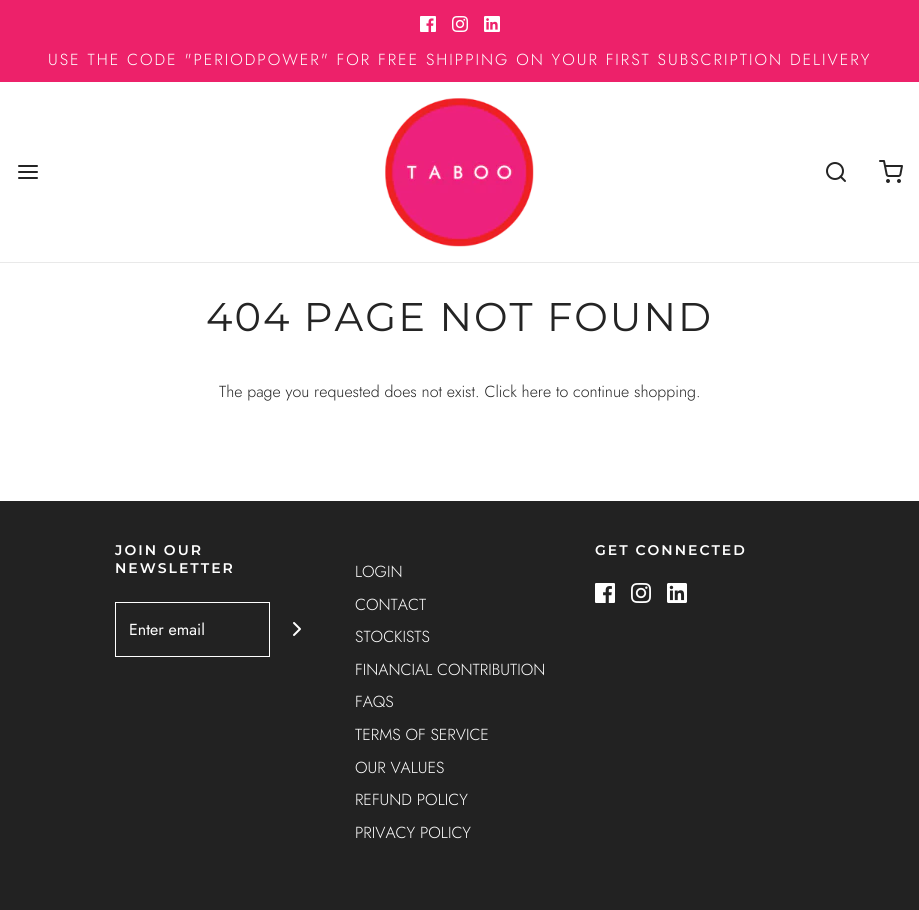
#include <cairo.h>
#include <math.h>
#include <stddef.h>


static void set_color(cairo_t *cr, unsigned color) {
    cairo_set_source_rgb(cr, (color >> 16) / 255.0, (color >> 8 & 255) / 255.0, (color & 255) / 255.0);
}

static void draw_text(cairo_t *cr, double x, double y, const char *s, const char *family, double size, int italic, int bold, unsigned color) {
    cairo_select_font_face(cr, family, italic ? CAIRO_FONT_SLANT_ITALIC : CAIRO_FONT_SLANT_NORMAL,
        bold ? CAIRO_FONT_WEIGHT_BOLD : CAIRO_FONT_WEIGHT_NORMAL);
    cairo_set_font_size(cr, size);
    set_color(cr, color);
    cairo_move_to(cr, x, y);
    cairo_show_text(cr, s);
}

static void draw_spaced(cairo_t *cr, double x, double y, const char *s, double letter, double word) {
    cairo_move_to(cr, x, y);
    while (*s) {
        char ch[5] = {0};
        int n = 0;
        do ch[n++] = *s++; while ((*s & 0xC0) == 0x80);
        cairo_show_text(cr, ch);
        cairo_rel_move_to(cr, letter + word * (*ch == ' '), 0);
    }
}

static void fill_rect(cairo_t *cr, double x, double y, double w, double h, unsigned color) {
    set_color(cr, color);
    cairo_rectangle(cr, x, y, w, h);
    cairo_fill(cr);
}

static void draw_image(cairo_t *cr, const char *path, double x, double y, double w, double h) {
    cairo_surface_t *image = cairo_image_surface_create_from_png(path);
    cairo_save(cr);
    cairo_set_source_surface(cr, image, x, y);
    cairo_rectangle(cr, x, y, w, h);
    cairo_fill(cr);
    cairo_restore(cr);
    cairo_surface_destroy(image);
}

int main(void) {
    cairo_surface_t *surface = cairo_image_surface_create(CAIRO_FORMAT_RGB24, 919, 910);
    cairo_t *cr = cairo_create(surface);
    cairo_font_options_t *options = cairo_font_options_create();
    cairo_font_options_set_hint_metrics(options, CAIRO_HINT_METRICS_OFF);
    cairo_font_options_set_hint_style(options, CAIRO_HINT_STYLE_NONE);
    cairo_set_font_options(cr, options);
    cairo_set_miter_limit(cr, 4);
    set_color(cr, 0xFFFFFF);
    cairo_paint(cr);
    fill_rect(cr, 0, 0, 919, 82, 0xED216A);
    draw_image(cr, "assets/img1.png", 420, 16, 16, 16);
    draw_image(cr, "assets/img2.png", 452, 16, 16, 16);
    draw_image(cr, "assets/img3.png", 484, 16, 16, 16);
    cairo_select_font_face(cr, "Jost Light", CAIRO_FONT_SLANT_NORMAL, CAIRO_FONT_WEIGHT_NORMAL);
    cairo_set_font_size(cr, 16);
    set_color(cr, 0xFFFFFF);
    draw_spaced(cr, 48, 65, "USE THE CODE \"PERIODPOWER\" FOR FREE SHIPPING ON YOUR FIRST SUBSCRIPTION DELIVERY", 2, 0);
    fill_rect(cr, 0, 262, 919, 1, 0xE9E9E9);
    cairo_new_path(cr);
    cairo_move_to(cr, 19, 172);
    cairo_line_to(cr, 37, 172);
    cairo_move_to(cr, 19, 166);
    cairo_line_to(cr, 37, 166);
    cairo_move_to(cr, 19, 178);
    cairo_line_to(cr, 37, 178);
    set_color(cr, 0x242424);
    cairo_set_line_cap(cr, CAIRO_LINE_CAP_ROUND);
    cairo_set_line_join(cr, CAIRO_LINE_JOIN_ROUND);
    cairo_stroke(cr);
    draw_image(cr, "assets/img4.png", 385, 98, 149, 149);
    cairo_arc(cr, 835, 171, 8, 0, 2 * M_PI);
    cairo_set_line_cap(cr, CAIRO_LINE_CAP_BUTT);
    cairo_set_line_join(cr, CAIRO_LINE_JOIN_MITER);
    cairo_stroke(cr);
    cairo_new_path(cr);
    cairo_move_to(cr, 845, 181);
    cairo_line_to(cr, 840.5, 176.5);
    cairo_set_line_cap(cr, CAIRO_LINE_CAP_ROUND);
    cairo_set_line_join(cr, CAIRO_LINE_JOIN_ROUND);
    cairo_stroke(cr);
    draw_image(cr, "assets/img5.png", 879, 160, 24, 23);
    cairo_select_font_face(cr, "Montserrat", CAIRO_FONT_SLANT_NORMAL, CAIRO_FONT_WEIGHT_NORMAL);
    cairo_set_font_size(cr, 40);
    draw_spaced(cr, 206, 331, "404 PAGE NOT FOUND", 2, 0);
    draw_text(cr, 219, 397, "The page you requested does not exist. Click here to continue shopping.", "Jost Light", 16, 0, 0, 0x242424);
    fill_rect(cr, 0, 501, 919, 409, 0x222222);
    cairo_select_font_face(cr, "Montserrat SemiBold", CAIRO_FONT_SLANT_NORMAL, CAIRO_FONT_WEIGHT_NORMAL);
    cairo_set_font_size(cr, 14);
    set_color(cr, 0xFFFFFF);
    draw_spaced(cr, 115, 555, "JOIN OUR", 2, 0);
    draw_spaced(cr, 115, 573, "NEWSLETTER", 2, 0);
    cairo_rectangle(cr, 115.5, 602.5, 154, 54);
    cairo_set_line_width(cr, 1);
    cairo_set_line_cap(cr, CAIRO_LINE_CAP_BUTT);
    cairo_set_line_join(cr, CAIRO_LINE_JOIN_MITER);
    cairo_stroke(cr);
    draw_text(cr, 129, 635, "Enter email", "Jost", 16, 0, 0, 0xFFFFFF);
    cairo_new_path(cr);
    cairo_move_to(cr, 294, 635);
    cairo_line_to(cr, 300, 629);
    cairo_line_to(cr, 294, 623);
    cairo_set_line_width(cr, 2);
    cairo_set_line_cap(cr, CAIRO_LINE_CAP_ROUND);
    cairo_set_line_join(cr, CAIRO_LINE_JOIN_ROUND);
    cairo_stroke(cr);
    cairo_select_font_face(cr, "Montserrat SemiBold", CAIRO_FONT_SLANT_NORMAL, CAIRO_FONT_WEIGHT_NORMAL);
    cairo_set_font_size(cr, 14);
    draw_spaced(cr, 595, 555, "GET CONNECTED", 2, 0);
    draw_image(cr, "assets/img6.png", 595, 583, 20, 20);
    draw_image(cr, "assets/img7.png", 631, 583, 20, 20);
    draw_image(cr, "assets/img8.png", 667, 583, 20, 20);
    draw_text(cr, 355, 577, "LOGIN", "Jost Light", 16, 0, 0, 0xFFFFFF);
    draw_text(cr, 355, 610, "CONTACT", "Jost Light", 16, 0, 0, 0xFFFFFF);
    draw_text(cr, 355, 642, "STOCKISTS", "Jost Light", 16, 0, 0, 0xFFFFFF);
    draw_text(cr, 355, 675, "FINANCIAL CONTRIBUTION", "Jost Light", 16, 0, 0, 0xFFFFFF);
    draw_text(cr, 355, 707, "FAQS", "Jost Light", 16, 0, 0, 0xFFFFFF);
    draw_text(cr, 355, 740, "TERMS OF SERVICE", "Jost Light", 16, 0, 0, 0xFFFFFF);
    draw_text(cr, 355, 773, "OUR VALUES", "Jost Light", 16, 0, 0, 0xFFFFFF);
    draw_text(cr, 355, 805, "REFUND POLICY", "Jost Light", 16, 0, 0, 0xFFFFFF);
    draw_text(cr, 355, 838, "PRIVACY POLICY", "Jost Light", 16, 0, 0, 0xFFFFFF);
    cairo_surface_write_to_png(surface, "output.png");
    cairo_font_options_destroy(options);
    cairo_destroy(cr);
    cairo_surface_destroy(surface);
    return 0;
}
